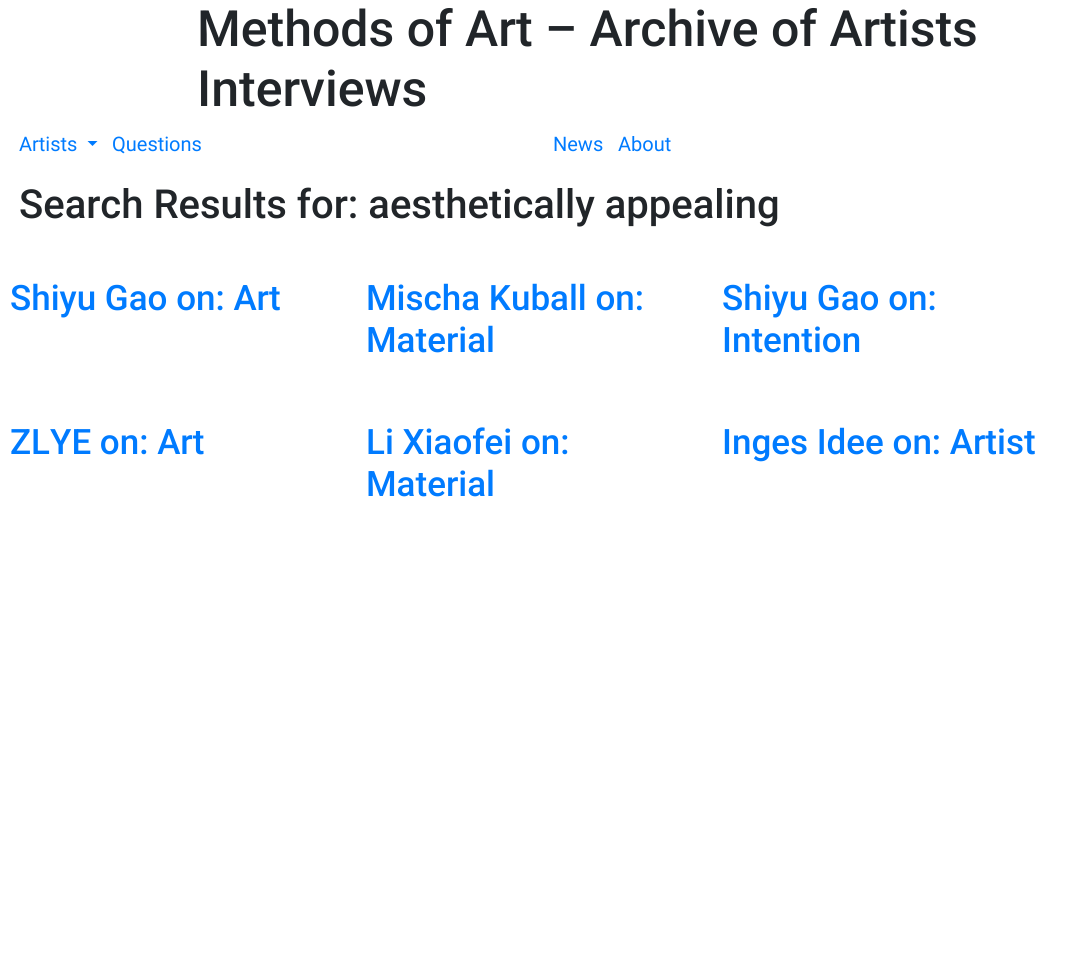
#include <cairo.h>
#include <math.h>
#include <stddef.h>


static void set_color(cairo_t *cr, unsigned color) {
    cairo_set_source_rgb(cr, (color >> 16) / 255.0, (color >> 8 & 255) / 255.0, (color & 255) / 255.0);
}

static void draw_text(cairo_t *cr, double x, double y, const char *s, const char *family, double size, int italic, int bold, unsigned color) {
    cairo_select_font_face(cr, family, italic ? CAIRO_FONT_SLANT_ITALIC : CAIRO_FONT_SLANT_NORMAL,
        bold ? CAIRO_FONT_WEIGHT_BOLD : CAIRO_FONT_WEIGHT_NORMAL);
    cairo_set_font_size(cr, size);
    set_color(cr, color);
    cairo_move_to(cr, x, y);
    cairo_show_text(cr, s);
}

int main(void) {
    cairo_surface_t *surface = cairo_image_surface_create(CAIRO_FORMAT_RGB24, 1068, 961);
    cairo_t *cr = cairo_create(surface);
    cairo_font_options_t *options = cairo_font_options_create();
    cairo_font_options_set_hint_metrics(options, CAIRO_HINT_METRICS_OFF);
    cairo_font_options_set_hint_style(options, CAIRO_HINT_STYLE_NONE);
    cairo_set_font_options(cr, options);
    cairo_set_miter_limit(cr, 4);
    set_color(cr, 0xFFFFFF);
    cairo_paint(cr);
    draw_text(cr, 197, 46, "Methods of Art – Archive of Artists", "Roboto Medium", 50, 0, 0, 0x212529);
    draw_text(cr, 197, 106, "Interviews", "Roboto Medium", 50, 0, 0, 0x212529);
    draw_text(cr, 19, 151, "Artists", "Roboto", 20, 0, 0, 0x007BFF);
    cairo_new_path(cr);
    cairo_move_to(cr, 87.5, 141);
    cairo_line_to(cr, 97.5, 141);
    cairo_line_to(cr, 92.5, 146);
    cairo_close_path(cr);
    cairo_fill(cr);
    draw_text(cr, 112, 151, "Questions", "Roboto", 20, 0, 0, 0x007BFF);
    draw_text(cr, 553, 151, "News", "Roboto", 20, 0, 0, 0x007BFF);
    draw_text(cr, 618, 151, "About", "Roboto", 20, 0, 0, 0x007BFF);
    draw_text(cr, 19, 218, "Search Results for: aesthetically appealing", "Roboto Medium", 40, 0, 0, 0x212529);
    draw_text(cr, 10, 310, "Shiyu Gao on: Art", "Roboto Medium", 35, 0, 0, 0x007BFF);
    draw_text(cr, 366, 310, "Mischa Kuball on:", "Roboto Medium", 35, 0, 0, 0x007BFF);
    draw_text(cr, 366, 352, "Material", "Roboto Medium", 35, 0, 0, 0x007BFF);
    draw_text(cr, 722, 310, "Shiyu Gao on:", "Roboto Medium", 35, 0, 0, 0x007BFF);
    draw_text(cr, 722, 352, "Intention", "Roboto Medium", 35, 0, 0, 0x007BFF);
    draw_text(cr, 10, 454, "ZLYE on: Art", "Roboto Medium", 35, 0, 0, 0x007BFF);
    draw_text(cr, 366, 454, "Li Xiaofei on:", "Roboto Medium", 35, 0, 0, 0x007BFF);
    draw_text(cr, 366, 496, "Material", "Roboto Medium", 35, 0, 0, 0x007BFF);
    draw_text(cr, 722, 454, "Inges Idee on: Artist", "Roboto Medium", 35, 0, 0, 0x007BFF);
    cairo_surface_write_to_png(surface, "output.png");
    cairo_font_options_destroy(options);
    cairo_destroy(cr);
    cairo_surface_destroy(surface);
    return 0;
}
